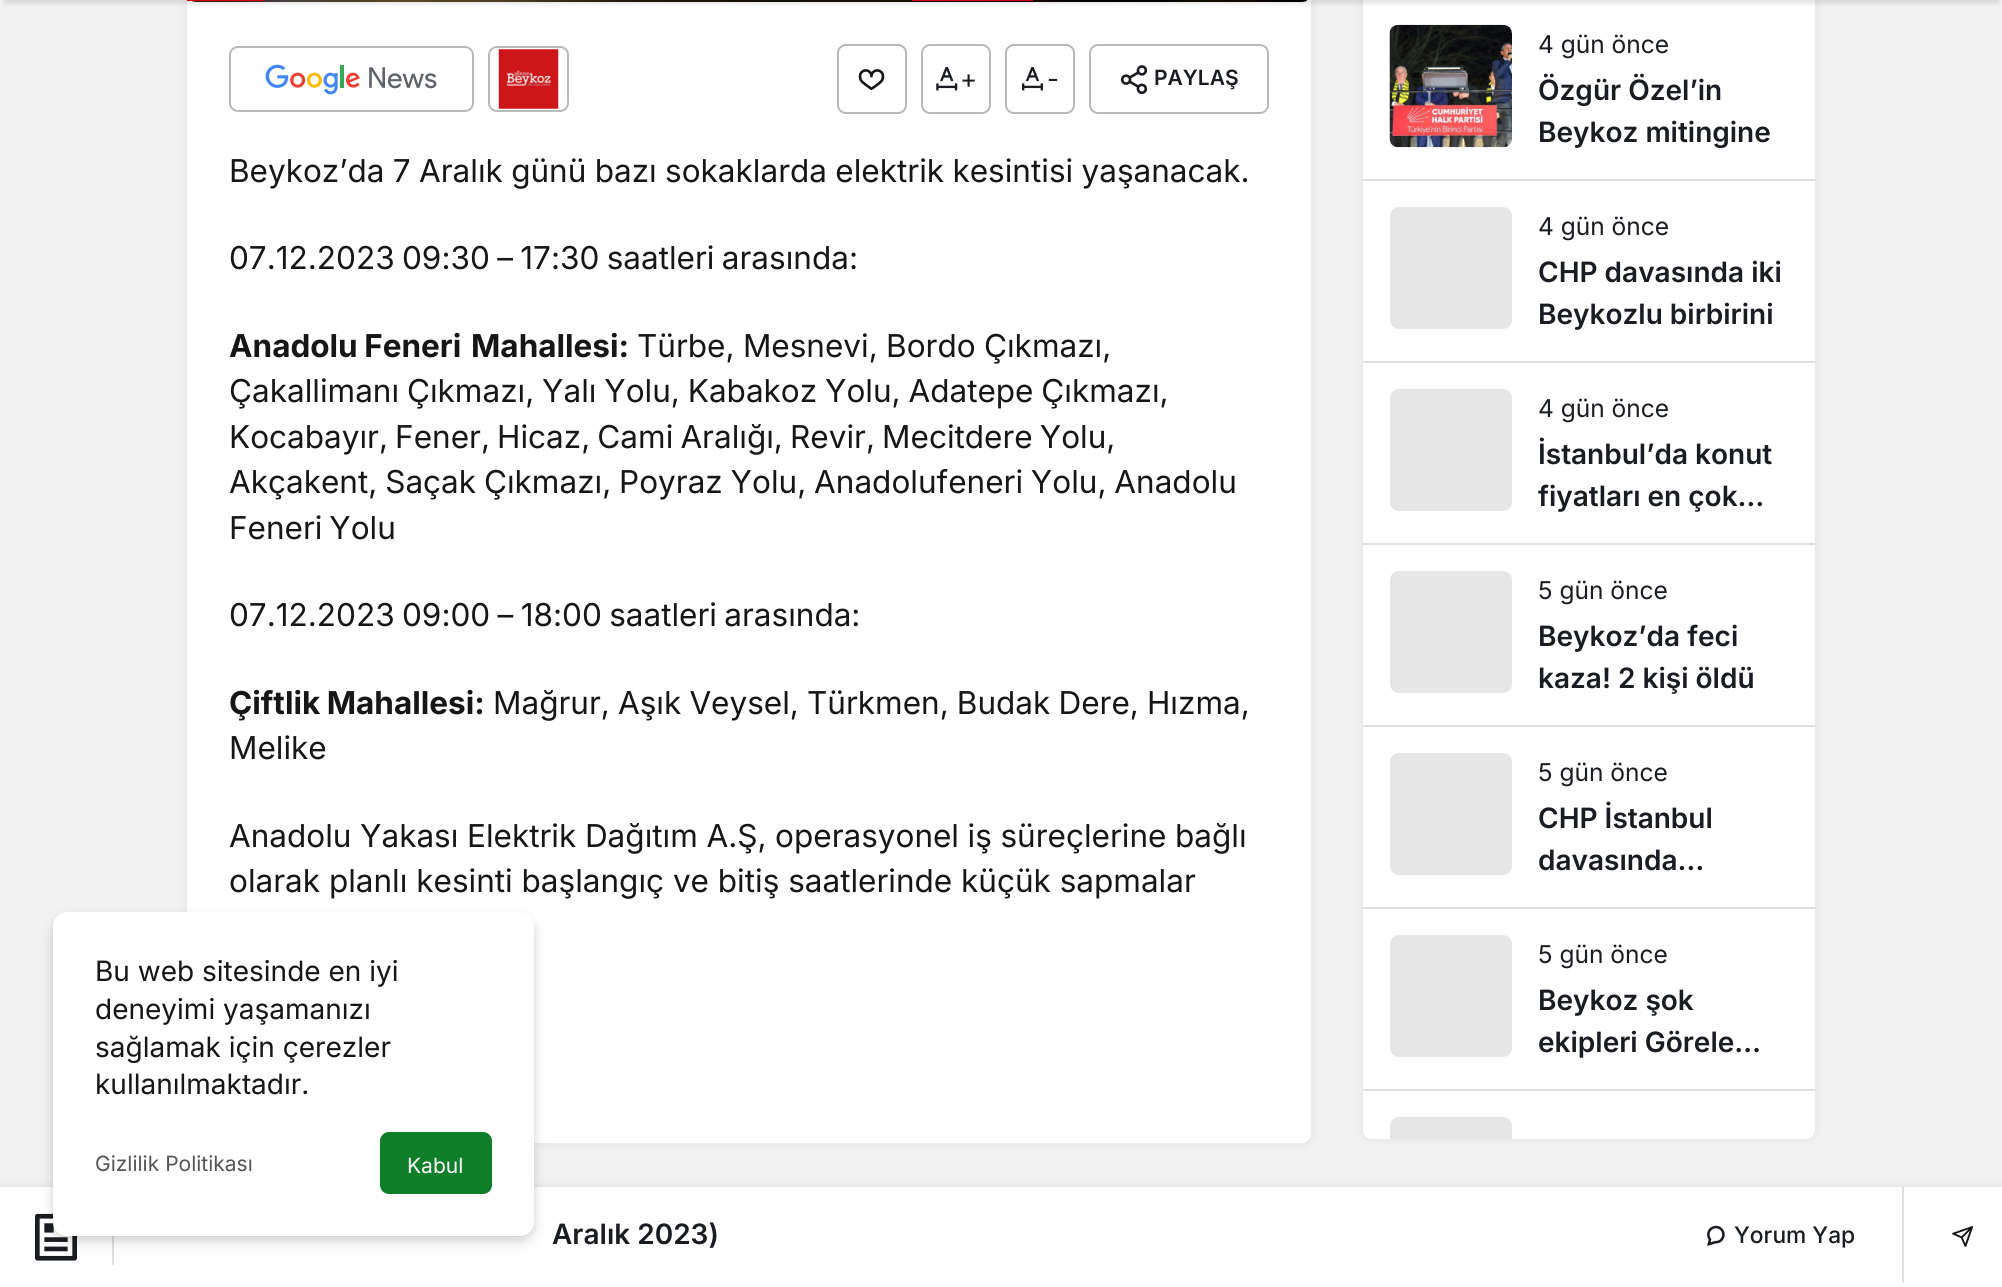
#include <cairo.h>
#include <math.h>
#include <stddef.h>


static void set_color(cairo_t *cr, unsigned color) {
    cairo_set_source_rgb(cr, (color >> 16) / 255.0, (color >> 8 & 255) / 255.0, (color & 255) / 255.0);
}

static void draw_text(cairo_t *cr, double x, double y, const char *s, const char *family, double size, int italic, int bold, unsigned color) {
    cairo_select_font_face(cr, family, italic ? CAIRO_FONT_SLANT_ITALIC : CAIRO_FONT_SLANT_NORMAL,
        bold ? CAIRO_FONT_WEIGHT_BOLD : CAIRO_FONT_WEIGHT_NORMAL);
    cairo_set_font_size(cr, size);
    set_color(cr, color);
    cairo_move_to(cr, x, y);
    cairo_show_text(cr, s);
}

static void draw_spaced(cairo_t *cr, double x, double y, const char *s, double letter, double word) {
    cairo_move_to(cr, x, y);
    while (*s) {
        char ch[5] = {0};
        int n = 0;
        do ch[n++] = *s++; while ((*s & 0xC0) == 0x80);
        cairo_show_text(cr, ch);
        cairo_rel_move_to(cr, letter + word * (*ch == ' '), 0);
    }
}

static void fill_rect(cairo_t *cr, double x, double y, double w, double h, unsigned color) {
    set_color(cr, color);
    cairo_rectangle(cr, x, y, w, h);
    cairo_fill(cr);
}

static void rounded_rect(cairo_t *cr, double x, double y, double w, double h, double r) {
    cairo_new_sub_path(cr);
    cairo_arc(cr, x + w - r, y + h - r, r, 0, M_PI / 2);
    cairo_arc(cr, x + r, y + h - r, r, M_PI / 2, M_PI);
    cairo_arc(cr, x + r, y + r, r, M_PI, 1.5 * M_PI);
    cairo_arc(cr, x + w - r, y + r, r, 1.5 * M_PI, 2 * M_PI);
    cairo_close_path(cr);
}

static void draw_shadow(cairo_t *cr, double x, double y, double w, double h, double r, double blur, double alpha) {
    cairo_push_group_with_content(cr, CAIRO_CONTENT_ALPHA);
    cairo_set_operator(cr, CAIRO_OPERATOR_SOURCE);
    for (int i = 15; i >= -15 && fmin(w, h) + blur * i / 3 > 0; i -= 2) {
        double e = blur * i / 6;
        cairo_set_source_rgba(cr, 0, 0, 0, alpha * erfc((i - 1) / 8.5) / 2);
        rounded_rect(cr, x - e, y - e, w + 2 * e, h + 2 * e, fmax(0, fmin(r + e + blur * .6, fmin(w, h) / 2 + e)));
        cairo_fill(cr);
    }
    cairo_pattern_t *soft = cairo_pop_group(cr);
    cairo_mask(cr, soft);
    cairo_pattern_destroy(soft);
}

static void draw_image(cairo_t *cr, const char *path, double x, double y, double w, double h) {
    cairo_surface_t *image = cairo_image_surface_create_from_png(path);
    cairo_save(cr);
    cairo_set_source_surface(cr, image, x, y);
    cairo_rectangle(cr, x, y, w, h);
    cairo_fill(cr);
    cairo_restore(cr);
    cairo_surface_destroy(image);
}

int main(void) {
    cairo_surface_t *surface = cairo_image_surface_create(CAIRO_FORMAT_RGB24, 2002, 1287);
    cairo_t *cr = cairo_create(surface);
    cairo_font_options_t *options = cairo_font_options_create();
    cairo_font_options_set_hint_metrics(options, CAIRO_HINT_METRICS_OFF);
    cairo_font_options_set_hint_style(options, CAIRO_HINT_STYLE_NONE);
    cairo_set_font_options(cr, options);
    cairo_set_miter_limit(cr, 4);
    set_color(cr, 0xF2F2F3);
    cairo_paint(cr);
    set_color(cr, 0x32353D);
    draw_shadow(cr, 1363, -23, 452, 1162, 9, 4.5, 0.1);
    set_color(cr, 0xFFFFFF);
    rounded_rect(cr, 1363, -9, 452, 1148, 9);
    cairo_fill(cr);
    set_color(cr, 0x32353D);
    draw_shadow(cr, 187, -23, 1124, 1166, 9, 4.5, 0.1);
    set_color(cr, 0xFFFFFF);
    rounded_rect(cr, 187, -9, 1124, 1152, 9);
    cairo_fill(cr);
    draw_image(cr, "assets/img2.png", 192, 0, 1116, 2);
    set_color(cr, 0x000000);
    draw_shadow(cr, 4, -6, 1995, 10, 0, 2, 0.1);
    fill_rect(cr, 187, 0, 77, 1, 0xD7050F);
    fill_rect(cr, 912, 0, 121, 1, 0xD7050F);
    fill_rect(cr, 1363, 179, 452, 2, 0xDEDFE2);
    draw_image(cr, "assets/img1.png", 1389, 24, 123, 124);
    draw_text(cr, 1538, 53, "4 gün önce", "Inter", 24.5, 0, 0, 0x191C20);
    draw_text(cr, 1538, 100, "Özgür Özel’in", "Inter SemiBold", 28, 0, 0, 0x191C20);
    draw_text(cr, 1538, 142, "Beykoz mitingine", "Inter SemiBold", 28, 0, 0, 0x191C20);
    fill_rect(cr, 1363, 361, 452, 2, 0xDEDFE2);
    set_color(cr, 0xE6E6E6);
    rounded_rect(cr, 1390, 207, 122, 122, 9);
    cairo_fill(cr);
    draw_text(cr, 1538, 235, "4 gün önce", "Inter", 24.5, 0, 0, 0x191C20);
    draw_text(cr, 1538, 282, "CHP davasında iki", "Inter SemiBold", 28, 0, 0, 0x191C20);
    draw_text(cr, 1538, 324, "Beykozlu birbirini", "Inter SemiBold", 28, 0, 0, 0x191C20);
    fill_rect(cr, 1363, 543, 452, 2, 0xDEDFE2);
    set_color(cr, 0xE6E6E6);
    rounded_rect(cr, 1390, 389, 122, 122, 9);
    cairo_fill(cr);
    draw_text(cr, 1538, 417, "4 gün önce", "Inter", 24.5, 0, 0, 0x191C20);
    draw_text(cr, 1538, 464, "İstanbul’da konut", "Inter SemiBold", 28, 0, 0, 0x191C20);
    draw_text(cr, 1538, 506, "fiyatları en çok…", "Inter SemiBold", 28, 0, 0, 0x191C20);
    fill_rect(cr, 1363, 725, 452, 2, 0xDEDFE2);
    set_color(cr, 0xE6E6E6);
    rounded_rect(cr, 1390, 571, 122, 122, 9);
    cairo_fill(cr);
    draw_text(cr, 1538, 599, "5 gün önce", "Inter", 24.5, 0, 0, 0x191C20);
    draw_text(cr, 1538, 646, "Beykoz’da feci", "Inter SemiBold", 28, 0, 0, 0x191C20);
    draw_text(cr, 1538, 688, "kaza! 2 kişi öldü", "Inter SemiBold", 28, 0, 0, 0x191C20);
    fill_rect(cr, 1363, 907, 452, 2, 0xDEDFE2);
    set_color(cr, 0xE6E6E6);
    rounded_rect(cr, 1390, 753, 122, 122, 9);
    cairo_fill(cr);
    draw_text(cr, 1538, 781, "5 gün önce", "Inter", 24.5, 0, 0, 0x191C20);
    draw_text(cr, 1538, 828, "CHP İstanbul", "Inter SemiBold", 28, 0, 0, 0x191C20);
    draw_text(cr, 1538, 870, "davasında…", "Inter SemiBold", 28, 0, 0, 0x191C20);
    fill_rect(cr, 1363, 1089, 452, 2, 0xDEDFE2);
    set_color(cr, 0xE6E6E6);
    rounded_rect(cr, 1390, 935, 122, 122, 9);
    cairo_fill(cr);
    draw_text(cr, 1538, 963, "5 gün önce", "Inter", 24.5, 0, 0, 0x191C20);
    draw_text(cr, 1538, 1010, "Beykoz şok", "Inter SemiBold", 28, 0, 0, 0x191C20);
    draw_text(cr, 1538, 1052, "ekipleri Görele…", "Inter SemiBold", 28, 0, 0, 0x191C20);
    set_color(cr, 0xE6E6E6);
    cairo_new_path(cr);
    cairo_move_to(cr, 1399, 1117);
    cairo_line_to(cr, 1503, 1117);
    cairo_curve_to(cr, 1508, 1117, 1512, 1121, 1512, 1126);
    cairo_line_to(cr, 1512, 1139);
    cairo_line_to(cr, 1390, 1139);
    cairo_line_to(cr, 1390, 1126);
    cairo_curve_to(cr, 1390, 1121, 1394, 1117, 1399, 1117);
    cairo_close_path(cr);
    cairo_fill(cr);
    draw_image(cr, "assets/img3.png", 265, 64, 172, 31);
    rounded_rect(cr, 230, 47, 243, 64, 8);
    set_color(cr, 0xB9B9B9);
    cairo_stroke(cr);
    rounded_rect(cr, 489, 47, 79, 64, 8);
    cairo_stroke(cr);
    draw_image(cr, "assets/img4.png", 498, 49, 61, 60);
    rounded_rect(cr, 838, 45, 68, 68, 8);
    cairo_stroke(cr);
    draw_image(cr, "assets/img5.png", 858, 69, 27, 22);
    rounded_rect(cr, 922, 45, 68, 68, 8);
    cairo_stroke(cr);
    draw_image(cr, "assets/img6.png", 936, 67, 22, 24);
    draw_text(cr, 960, 88, "+", "Inter", 26, 0, 0, 0x191C20);
    rounded_rect(cr, 1006, 45, 68, 68, 8);
    set_color(cr, 0xB9B9B9);
    cairo_stroke(cr);
    draw_image(cr, "assets/img7.png", 1022, 67, 21, 24);
    draw_text(cr, 1047, 88, "-", "Inter", 26, 0, 0, 0x191C20);
    rounded_rect(cr, 1090, 45, 178, 68, 8);
    set_color(cr, 0xB9B9B9);
    cairo_stroke(cr);
    draw_image(cr, "assets/img8.png", 1120, 65, 28, 30);
    draw_text(cr, 1154, 85, "PAYLAŞ", "Inter SemiBold", 21, 0, 0, 0x191C20);
    cairo_select_font_face(cr, "Inter", CAIRO_FONT_SLANT_NORMAL, CAIRO_FONT_WEIGHT_NORMAL);
    cairo_set_font_size(cr, 31.5);
    set_color(cr, 0x161616);
    draw_spaced(cr, 229, 182, "Beykoz’da 7 Aralık günü bazı sokaklarda elektrik kesintisi yaşanacak.", 0, -0.5);
    draw_spaced(cr, 229, 269, "07.12.2023 09:30 – 17:30 saatleri arasında:", 0, -1.5);
    cairo_select_font_face(cr, "Inter", CAIRO_FONT_SLANT_NORMAL, CAIRO_FONT_WEIGHT_BOLD);
    draw_spaced(cr, 229, 357, "Anadolu Feneri", 0, -1);
    draw_text(cr, 471, 357, "Mahallesi:", "Inter", 31.5, 0, 1, 0x161616);
    cairo_select_font_face(cr, "Inter", CAIRO_FONT_SLANT_NORMAL, CAIRO_FONT_WEIGHT_NORMAL);
    draw_spaced(cr, 637, 357, "Türbe, Mesnevi, Bordo Çıkmazı,", 0, -0.5);
    draw_spaced(cr, 229, 402, "Çakallimanı Çıkmazı, Yalı Yolu, Kabakoz Yolu, Adatepe Çıkmazı,", 0, -1);
    draw_spaced(cr, 229, 448, "Kocabayır, Fener, Hicaz, Cami Aralığı, Revir, Mecitdere Yolu,", 0, -1.75);
    draw_spaced(cr, 229, 493, "Akçakent, Saçak Çıkmazı, Poyraz Yolu, Anadolufeneri Yolu, Anadolu", 0, -1);
    draw_spaced(cr, 229, 539, "Feneri Yolu", 0, -2);
    draw_spaced(cr, 229, 626, "07.12.2023 09:00 – 18:00 saatleri arasında:", 0, -1.5);
    cairo_select_font_face(cr, "Inter", CAIRO_FONT_SLANT_NORMAL, CAIRO_FONT_WEIGHT_BOLD);
    draw_spaced(cr, 229, 714, "Çiftlik Mahallesi:", 0, -1);
    cairo_select_font_face(cr, "Inter", CAIRO_FONT_SLANT_NORMAL, CAIRO_FONT_WEIGHT_NORMAL);
    draw_spaced(cr, 493, 714, "Mağrur, Aşık Veysel, Türkmen, Budak Dere, Hızma,", 0, -0.75);
    draw_text(cr, 229, 759, "Melike", "Inter", 31.5, 0, 0, 0x161616);
    draw_spaced(cr, 229, 847, "Anadolu Yakası Elektrik Dağıtım A.Ş, operasyonel iş süreçlerine bağlı", 0, -0.25);
    draw_text(cr, 229, 892, "olarak planlı kesinti başlangıç ve bitiş saatlerinde küçük sapmalar", "Inter", 31.5, 0, 0, 0x161616);
    set_color(cr, 0x000000);
    draw_shadow(cr, 2, 1187, 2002, 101, 0, 4.5, 0.1);
    fill_rect(cr, 0, 1187, 2002, 100, 0xFFFFFF);
    draw_image(cr, "assets/img9.png", 35, 1213, 42, 48);
    fill_rect(cr, 112, 1236, 2, 29, 0xDEDFE2);
    draw_text(cr, 552, 1244, "Aralık 2023)", "Inter SemiBold", 28, 0, 0, 0x191C20);
    draw_image(cr, "assets/img10.png", 1707, 1225, 18, 21);
    draw_text(cr, 1734, 1243, "Yorum Yap", "Inter Medium", 22.75, 0, 0, 0x191C20);
    fill_rect(cr, 1902, 1187, 2, 96, 0xDEDFE2);
    draw_image(cr, "assets/img11.png", 1952, 1226, 21, 21);
    set_color(cr, 0x000000);
    draw_shadow(cr, 53, 915, 481, 324, 14, 3.5, 0.08);
    draw_shadow(cr, 53, 919, 481, 324, 14, 7, 0.12);
    set_color(cr, 0xFFFFFF);
    rounded_rect(cr, 53, 912, 481, 324, 14);
    cairo_fill(cr);
    draw_text(cr, 95, 981, "Bu web sitesinde en iyi", "Inter", 28, 0, 0, 0x161616);
    draw_text(cr, 95, 1019, "deneyimi yaşamanızı", "Inter", 28, 0, 0, 0x161616);
    draw_text(cr, 95, 1057, "sağlamak için çerezler", "Inter", 28, 0, 0, 0x161616);
    draw_text(cr, 95, 1094, "kullanılmaktadır.", "Inter", 28, 0, 0, 0x161616);
    draw_text(cr, 95, 1171, "Gizlilik Politikası", "Inter", 21, 0, 0, 0x535558);
    set_color(cr, 0x0F7E29);
    rounded_rect(cr, 380, 1132, 112, 62, 9);
    cairo_fill(cr);
    draw_text(cr, 407, 1173, "Kabul", "Inter", 21, 0, 0, 0xFFFFFF);
    cairo_surface_write_to_png(surface, "output.png");
    cairo_font_options_destroy(options);
    cairo_destroy(cr);
    cairo_surface_destroy(surface);
    return 0;
}
